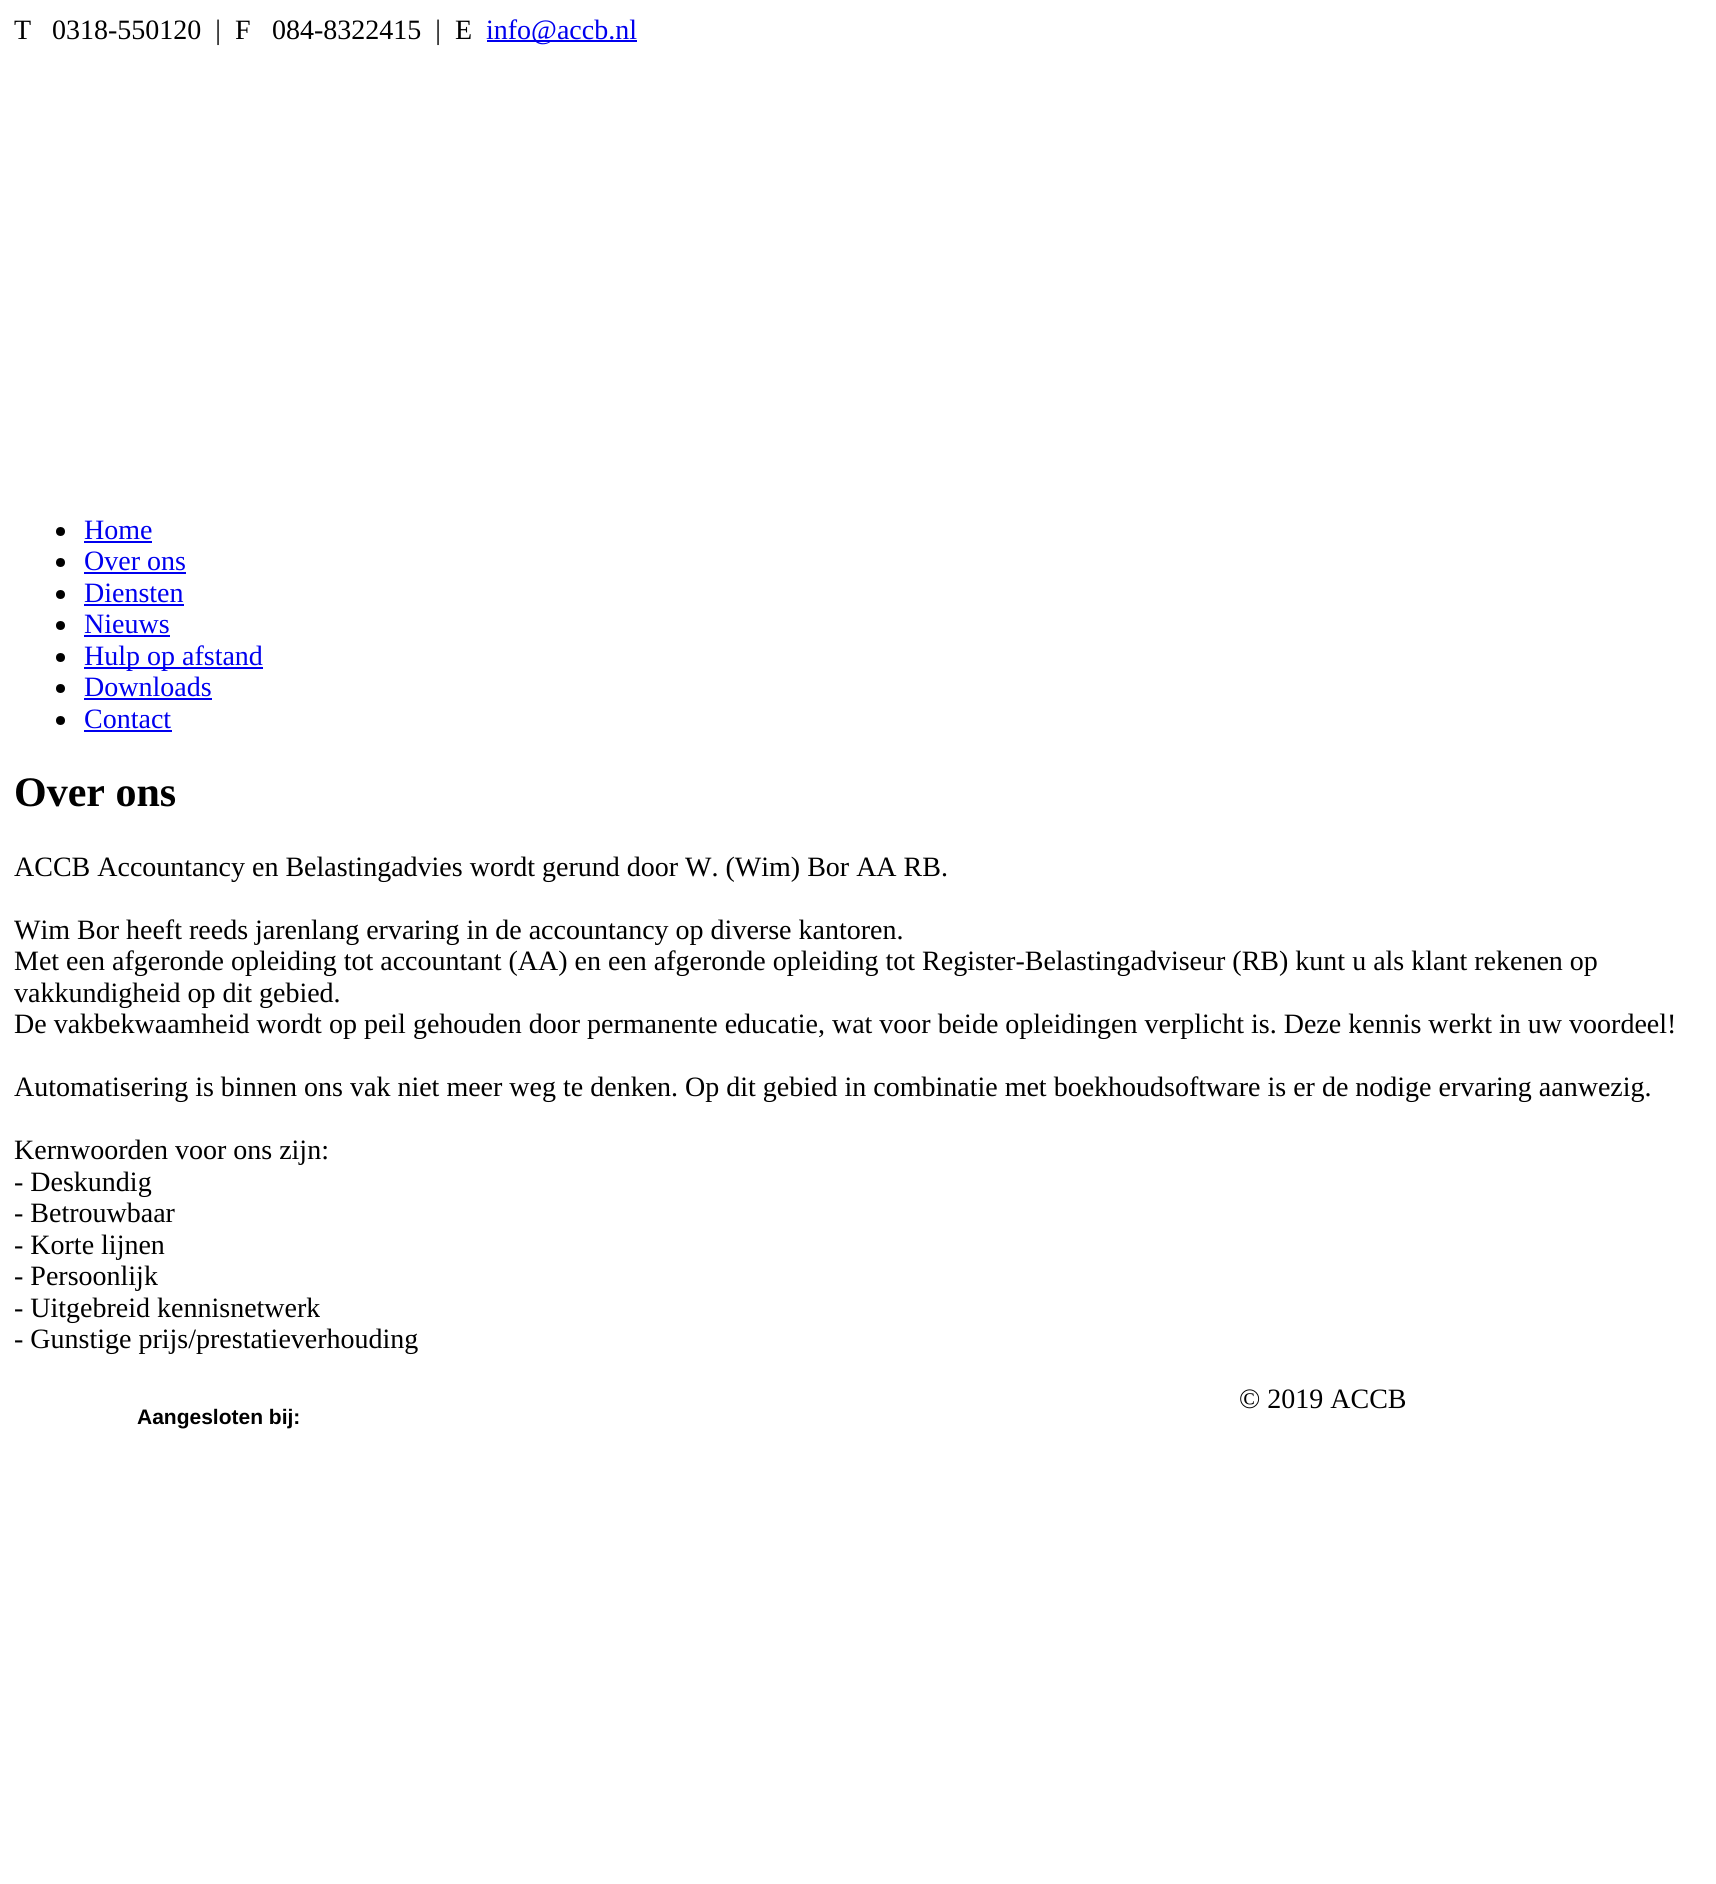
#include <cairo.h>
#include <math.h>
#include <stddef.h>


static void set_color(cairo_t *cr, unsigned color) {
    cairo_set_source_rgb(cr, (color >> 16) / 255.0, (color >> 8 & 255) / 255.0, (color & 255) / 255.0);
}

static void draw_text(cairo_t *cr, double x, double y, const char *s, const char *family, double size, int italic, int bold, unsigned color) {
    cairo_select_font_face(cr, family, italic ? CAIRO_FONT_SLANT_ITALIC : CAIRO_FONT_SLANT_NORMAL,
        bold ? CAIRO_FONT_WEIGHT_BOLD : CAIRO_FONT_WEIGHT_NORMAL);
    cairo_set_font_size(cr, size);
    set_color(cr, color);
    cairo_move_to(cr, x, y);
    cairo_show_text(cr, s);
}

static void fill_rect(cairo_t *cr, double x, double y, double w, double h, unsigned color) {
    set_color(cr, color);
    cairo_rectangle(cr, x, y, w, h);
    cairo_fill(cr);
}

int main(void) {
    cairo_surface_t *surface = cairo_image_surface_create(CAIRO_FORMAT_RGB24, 1716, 1884);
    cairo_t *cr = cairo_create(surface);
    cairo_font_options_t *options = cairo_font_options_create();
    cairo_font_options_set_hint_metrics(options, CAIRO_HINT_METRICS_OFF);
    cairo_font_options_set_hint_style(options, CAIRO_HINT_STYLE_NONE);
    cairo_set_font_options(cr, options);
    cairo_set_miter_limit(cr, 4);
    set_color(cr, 0xFFFFFF);
    cairo_paint(cr);
    draw_text(cr, 14, 39, "T", "Liberation Serif", 28, 0, 0, 0x000000);
    draw_text(cr, 52, 39, "0318-550120  |", "Liberation Serif", 28, 0, 0, 0x000000);
    draw_text(cr, 235, 39, "F", "Liberation Serif", 28, 0, 0, 0x000000);
    draw_text(cr, 272, 39, "084-8322415  |", "Liberation Serif", 28, 0, 0, 0x000000);
    draw_text(cr, 455, 39, "E", "Liberation Serif", 28, 0, 0, 0x000000);
    fill_rect(cr, 487, 40, 150, 2, 0x0000EE);
    draw_text(cr, 486, 39, "info@accb.nl", "Liberation Serif", 28, 0, 0, 0x0000EE);
    set_color(cr, 0x000000);
    cairo_new_path(cr);
    cairo_arc(cr, 60.5, 531.5, 4.5, 0, 2 * M_PI);
    cairo_fill(cr);
    draw_text(cr, 84, 539, "Home", "Liberation Serif", 28, 0, 0, 0x0000EE);
    fill_rect(cr, 84, 541, 68, 2, 0x0000EE);
    set_color(cr, 0x000000);
    cairo_new_path(cr);
    cairo_arc(cr, 60.5, 562.5, 4.5, 0, 2 * M_PI);
    cairo_fill(cr);
    draw_text(cr, 84, 570, "Over ons", "Liberation Serif", 28, 0, 0, 0x0000EE);
    fill_rect(cr, 84, 572, 102, 2, 0x0000EE);
    set_color(cr, 0x000000);
    cairo_new_path(cr);
    cairo_arc(cr, 60.5, 594.5, 4.5, 0, 2 * M_PI);
    cairo_fill(cr);
    draw_text(cr, 84, 602, "Diensten", "Liberation Serif", 28, 0, 0, 0x0000EE);
    fill_rect(cr, 84, 604, 100, 2, 0x0000EE);
    set_color(cr, 0x000000);
    cairo_new_path(cr);
    cairo_arc(cr, 60.5, 625.5, 4.5, 0, 2 * M_PI);
    cairo_fill(cr);
    draw_text(cr, 84, 633, "Nieuws", "Liberation Serif", 28, 0, 0, 0x0000EE);
    fill_rect(cr, 84, 635, 86, 2, 0x0000EE);
    set_color(cr, 0x000000);
    cairo_new_path(cr);
    cairo_arc(cr, 60.5, 657.5, 4.5, 0, 2 * M_PI);
    cairo_fill(cr);
    fill_rect(cr, 84, 667, 179, 2, 0x0000EE);
    draw_text(cr, 84, 665, "Hulp op afstand", "Liberation Serif", 28, 0, 0, 0x0000EE);
    set_color(cr, 0x000000);
    cairo_new_path(cr);
    cairo_arc(cr, 60.5, 688.5, 4.5, 0, 2 * M_PI);
    cairo_fill(cr);
    draw_text(cr, 84, 696, "Downloads", "Liberation Serif", 28, 0, 0, 0x0000EE);
    fill_rect(cr, 84, 698, 128, 2, 0x0000EE);
    set_color(cr, 0x000000);
    cairo_new_path(cr);
    cairo_arc(cr, 60.5, 720.5, 4.5, 0, 2 * M_PI);
    cairo_fill(cr);
    draw_text(cr, 84, 728, "Contact", "Liberation Serif", 28, 0, 0, 0x0000EE);
    fill_rect(cr, 84, 730, 88, 2, 0x0000EE);
    draw_text(cr, 14, 806, "Over ons", "Liberation Serif", 42, 0, 1, 0x000000);
    draw_text(cr, 14, 876, "ACCB Accountancy en Belastingadvies wordt gerund door W. (Wim) Bor AA RB.", "Liberation Serif", 28, 0, 0, 0x000000);
    draw_text(cr, 14, 939, "Wim Bor heeft reeds jarenlang ervaring in de accountancy op diverse kantoren.", "Liberation Serif", 28, 0, 0, 0x000000);
    draw_text(cr, 14, 970, "Met een afgeronde opleiding tot accountant (AA) en een afgeronde opleiding tot Register-Belastingadviseur (RB) kunt u als klant rekenen op", "Liberation Serif", 28, 0, 0, 0x000000);
    draw_text(cr, 14, 1002, "vakkundigheid op dit gebied.", "Liberation Serif", 28, 0, 0, 0x000000);
    draw_text(cr, 14, 1033, "De vakbekwaamheid wordt op peil gehouden door permanente educatie, wat voor beide opleidingen verplicht is. Deze kennis werkt in uw voordeel!", "Liberation Serif", 28, 0, 0, 0x000000);
    draw_text(cr, 14, 1096, "Automatisering is binnen ons vak niet meer weg te denken. Op dit gebied in combinatie met boekhoudsoftware is er de nodige ervaring aanwezig.", "Liberation Serif", 28, 0, 0, 0x000000);
    draw_text(cr, 14, 1159, "Kernwoorden voor ons zijn:", "Liberation Serif", 28, 0, 0, 0x000000);
    draw_text(cr, 14, 1191, "- Deskundig", "Liberation Serif", 28, 0, 0, 0x000000);
    draw_text(cr, 14, 1222, "- Betrouwbaar", "Liberation Serif", 28, 0, 0, 0x000000);
    draw_text(cr, 14, 1254, "- Korte lijnen", "Liberation Serif", 28, 0, 0, 0x000000);
    draw_text(cr, 14, 1285, "- Persoonlijk", "Liberation Serif", 28, 0, 0, 0x000000);
    draw_text(cr, 14, 1317, "- Uitgebreid kennisnetwerk", "Liberation Serif", 28, 0, 0, 0x000000);
    draw_text(cr, 14, 1348, "- Gunstige prijs/prestatieverhouding", "Liberation Serif", 28, 0, 0, 0x000000);
    draw_text(cr, 1239, 1408, "© 2019 ACCB", "Liberation Serif", 28, 0, 0, 0x000000);
    draw_text(cr, 137, 1424, "Aangesloten bij:", "Liberation Sans", 21, 0, 1, 0x000000);
    cairo_surface_write_to_png(surface, "output.png");
    cairo_font_options_destroy(options);
    cairo_destroy(cr);
    cairo_surface_destroy(surface);
    return 0;
}
